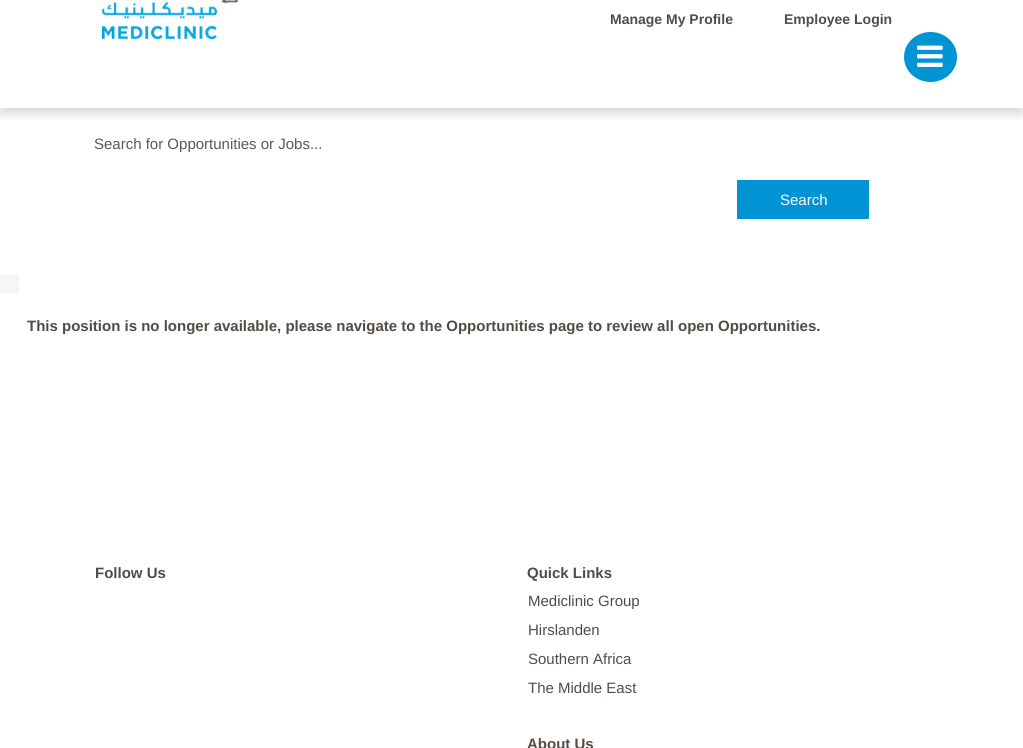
#include <cairo.h>
#include <math.h>
#include <stddef.h>


static void set_color(cairo_t *cr, unsigned color) {
    cairo_set_source_rgb(cr, (color >> 16) / 255.0, (color >> 8 & 255) / 255.0, (color & 255) / 255.0);
}

static void draw_text(cairo_t *cr, double x, double y, const char *s, const char *family, double size, int italic, int bold, unsigned color) {
    cairo_select_font_face(cr, family, italic ? CAIRO_FONT_SLANT_ITALIC : CAIRO_FONT_SLANT_NORMAL,
        bold ? CAIRO_FONT_WEIGHT_BOLD : CAIRO_FONT_WEIGHT_NORMAL);
    cairo_set_font_size(cr, size);
    set_color(cr, color);
    cairo_move_to(cr, x, y);
    cairo_show_text(cr, s);
}

static void fill_rect(cairo_t *cr, double x, double y, double w, double h, unsigned color) {
    set_color(cr, color);
    cairo_rectangle(cr, x, y, w, h);
    cairo_fill(cr);
}

static void rounded_rect(cairo_t *cr, double x, double y, double w, double h, double r) {
    cairo_new_sub_path(cr);
    cairo_arc(cr, x + w - r, y + h - r, r, 0, M_PI / 2);
    cairo_arc(cr, x + r, y + h - r, r, M_PI / 2, M_PI);
    cairo_arc(cr, x + r, y + r, r, M_PI, 1.5 * M_PI);
    cairo_arc(cr, x + w - r, y + r, r, 1.5 * M_PI, 2 * M_PI);
    cairo_close_path(cr);
}

static void draw_shadow(cairo_t *cr, double x, double y, double w, double h, double r, double blur, double alpha) {
    cairo_push_group_with_content(cr, CAIRO_CONTENT_ALPHA);
    cairo_set_operator(cr, CAIRO_OPERATOR_SOURCE);
    for (int i = 15; i >= -15 && fmin(w, h) + blur * i / 3 > 0; i -= 2) {
        double e = blur * i / 6;
        cairo_set_source_rgba(cr, 0, 0, 0, alpha * erfc((i - 1) / 8.5) / 2);
        rounded_rect(cr, x - e, y - e, w + 2 * e, h + 2 * e, fmax(0, fmin(r + e + blur * .6, fmin(w, h) / 2 + e)));
        cairo_fill(cr);
    }
    cairo_pattern_t *soft = cairo_pop_group(cr);
    cairo_mask(cr, soft);
    cairo_pattern_destroy(soft);
}

static void draw_image(cairo_t *cr, const char *path, double x, double y, double w, double h) {
    cairo_surface_t *image = cairo_image_surface_create_from_png(path);
    cairo_save(cr);
    cairo_set_source_surface(cr, image, x, y);
    cairo_rectangle(cr, x, y, w, h);
    cairo_fill(cr);
    cairo_restore(cr);
    cairo_surface_destroy(image);
}

int main(void) {
    cairo_surface_t *surface = cairo_image_surface_create(CAIRO_FORMAT_RGB24, 1023, 748);
    cairo_t *cr = cairo_create(surface);
    cairo_font_options_t *options = cairo_font_options_create();
    cairo_font_options_set_hint_metrics(options, CAIRO_HINT_METRICS_OFF);
    cairo_font_options_set_hint_style(options, CAIRO_HINT_STYLE_NONE);
    cairo_set_font_options(cr, options);
    cairo_set_miter_limit(cr, 4);
    set_color(cr, 0xFFFFFF);
    cairo_paint(cr);
    cairo_save(cr);
    cairo_rectangle(cr, 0, 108, 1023, 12);
    cairo_clip(cr);
    set_color(cr, 0x000000);
    draw_shadow(cr, 0, 4, 1023, 110, 0, 5, 0.15);
    cairo_restore(cr);
    draw_image(cr, "assets/img1.png", 102, 0, 136, 39);
    draw_text(cr, 610, 24, "Manage My Profile", "Liberation Sans", 14, 0, 1, 0x534C46);
    draw_text(cr, 784, 24, "Employee Login", "Liberation Sans", 14, 0, 1, 0x534C46);
    set_color(cr, 0x0094D4);
    cairo_new_path(cr);
    cairo_move_to(cr, 930.5, 32);
    cairo_curve_to(cr, 945, 32, 957, 43, 957, 57);
    cairo_curve_to(cr, 957, 71, 945, 82, 930.5, 82);
    cairo_curve_to(cr, 916, 82, 904, 71, 904, 57);
    cairo_curve_to(cr, 904, 43, 916, 32, 930.5, 32);
    cairo_close_path(cr);
    cairo_fill(cr);
    draw_image(cr, "assets/img2.png", 917, 45, 26, 22);
    cairo_save(cr);
    cairo_rectangle(cr, 92, 135, 613, 17);
    cairo_clip(cr);
    draw_text(cr, 94, 149, "Search for Opportunities or Jobs...", "Liberation Sans", 15, 0, 0, 0x595959);
    cairo_restore(cr);
    fill_rect(cr, 737, 180, 132, 39, 0x0094D4);
    draw_text(cr, 780, 205, "Search", "Liberation Sans", 15, 0, 0, 0xFFFFFF);
    set_color(cr, 0xF7F6F5);
    rounded_rect(cr, 0, 274, 19, 20, 3);
    cairo_fill(cr);
    draw_text(cr, 27, 331, "This position is no longer available, please navigate to the Opportunities page to review all open Opportunities.", "Liberation Sans", 15, 0, 1, 0x534C46);
    draw_text(cr, 95, 578, "Follow Us", "Liberation Sans", 15, 0, 1, 0x534C46);
    draw_text(cr, 527, 578, "Quick Links", "Liberation Sans", 15, 0, 1, 0x534C46);
    draw_text(cr, 528, 606, "Mediclinic Group", "Liberation Sans", 15, 0, 0, 0x534C46);
    draw_text(cr, 528, 635, "Hirslanden", "Liberation Sans", 15, 0, 0, 0x534C46);
    draw_text(cr, 528, 664, "Southern Africa", "Liberation Sans", 15, 0, 0, 0x534C46);
    draw_text(cr, 528, 693, "The Middle East", "Liberation Sans", 15, 0, 0, 0x534C46);
    draw_text(cr, 527, 749, "About Us", "Liberation Sans", 15, 0, 1, 0x534C46);
    cairo_surface_write_to_png(surface, "output.png");
    cairo_font_options_destroy(options);
    cairo_destroy(cr);
    cairo_surface_destroy(surface);
    return 0;
}
